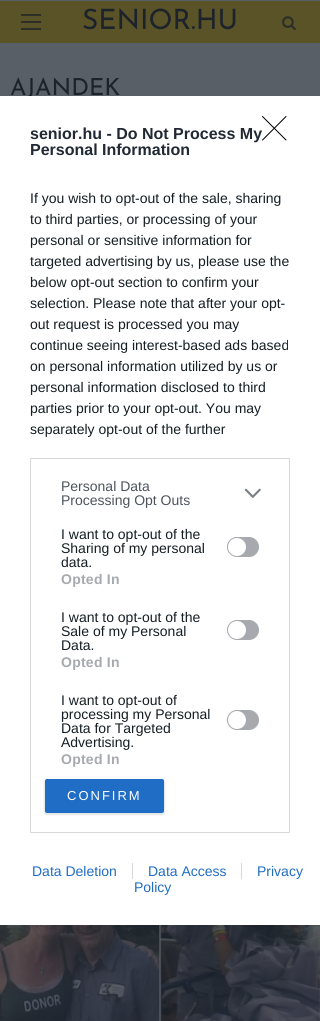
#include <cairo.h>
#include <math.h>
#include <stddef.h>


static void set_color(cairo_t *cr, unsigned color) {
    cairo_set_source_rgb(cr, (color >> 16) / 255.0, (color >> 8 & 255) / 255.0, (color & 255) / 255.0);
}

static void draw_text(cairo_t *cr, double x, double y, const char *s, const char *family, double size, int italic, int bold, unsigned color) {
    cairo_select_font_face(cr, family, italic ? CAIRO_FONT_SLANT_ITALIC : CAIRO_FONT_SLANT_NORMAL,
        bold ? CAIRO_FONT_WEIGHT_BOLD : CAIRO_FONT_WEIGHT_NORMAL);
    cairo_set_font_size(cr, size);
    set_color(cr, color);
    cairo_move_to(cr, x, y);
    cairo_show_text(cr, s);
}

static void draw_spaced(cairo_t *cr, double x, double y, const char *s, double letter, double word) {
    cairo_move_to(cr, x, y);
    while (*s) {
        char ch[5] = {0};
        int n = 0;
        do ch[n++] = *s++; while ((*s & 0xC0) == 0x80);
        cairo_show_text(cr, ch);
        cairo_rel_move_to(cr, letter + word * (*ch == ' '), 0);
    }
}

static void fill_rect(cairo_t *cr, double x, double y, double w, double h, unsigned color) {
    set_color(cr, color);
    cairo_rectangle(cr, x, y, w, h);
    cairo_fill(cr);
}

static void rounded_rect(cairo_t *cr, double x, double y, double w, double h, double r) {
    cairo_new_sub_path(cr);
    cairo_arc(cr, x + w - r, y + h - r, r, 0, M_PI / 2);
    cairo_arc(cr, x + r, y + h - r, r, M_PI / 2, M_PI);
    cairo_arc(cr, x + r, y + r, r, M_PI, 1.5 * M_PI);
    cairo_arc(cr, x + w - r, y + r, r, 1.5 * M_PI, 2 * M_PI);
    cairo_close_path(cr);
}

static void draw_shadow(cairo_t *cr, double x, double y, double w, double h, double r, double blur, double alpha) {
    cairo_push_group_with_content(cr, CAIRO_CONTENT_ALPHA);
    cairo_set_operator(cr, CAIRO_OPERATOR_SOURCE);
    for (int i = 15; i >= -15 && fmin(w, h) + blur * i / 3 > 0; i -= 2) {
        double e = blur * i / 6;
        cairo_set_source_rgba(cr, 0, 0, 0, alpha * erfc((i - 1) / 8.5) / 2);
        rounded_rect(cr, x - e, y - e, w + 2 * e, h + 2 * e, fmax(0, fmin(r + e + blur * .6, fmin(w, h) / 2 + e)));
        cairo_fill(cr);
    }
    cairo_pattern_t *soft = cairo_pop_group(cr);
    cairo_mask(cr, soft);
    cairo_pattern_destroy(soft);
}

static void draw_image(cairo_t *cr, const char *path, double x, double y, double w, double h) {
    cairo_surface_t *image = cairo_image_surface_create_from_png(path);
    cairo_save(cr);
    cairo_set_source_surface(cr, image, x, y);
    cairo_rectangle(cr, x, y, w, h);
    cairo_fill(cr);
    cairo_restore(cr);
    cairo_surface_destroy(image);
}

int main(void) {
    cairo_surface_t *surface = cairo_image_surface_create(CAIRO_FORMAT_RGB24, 320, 1021);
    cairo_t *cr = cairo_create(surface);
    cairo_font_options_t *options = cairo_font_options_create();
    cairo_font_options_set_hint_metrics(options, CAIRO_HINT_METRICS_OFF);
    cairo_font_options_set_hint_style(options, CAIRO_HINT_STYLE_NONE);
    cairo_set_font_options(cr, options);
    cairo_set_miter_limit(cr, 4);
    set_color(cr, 0x595F67);
    cairo_paint(cr);
    fill_rect(cr, 0, 1, 320, 42, 0x595327);
    fill_rect(cr, 21, 21, 20, 2, 0x2C2E27);
    fill_rect(cr, 21, 14, 20, 2, 0x2C2E27);
    fill_rect(cr, 21, 28, 20, 2, 0x2C2E27);
    draw_text(cr, 82, 29, "SENIOR.HU", "Josefin Sans", 28, 0, 0, 0x1D232B);
    draw_image(cr, "assets/img1.png", 282, 16, 14, 15);
    draw_text(cr, 10, 95, "AJANDEK", "Josefin Sans", 23.5, 0, 0, 0x1D232B);
    draw_image(cr, "assets/img2.png", 0, 925, 320, 96);
    fill_rect(cr, 0, 96, 320, 829, 0xFFFFFF);
    cairo_new_path(cr);
    cairo_move_to(cr, 262.5, 116.5);
    cairo_line_to(cr, 286, 140);
    cairo_move_to(cr, 286, 116.5);
    cairo_line_to(cr, 262.5, 140);
    set_color(cr, 0x000000);
    cairo_set_line_width(cr, 1);
    cairo_set_line_cap(cr, CAIRO_LINE_CAP_ROUND);
    cairo_set_line_join(cr, CAIRO_LINE_JOIN_ROUND);
    cairo_stroke(cr);
    draw_text(cr, 30, 139, "senior.hu - Do Not Process My", "Liberation Sans", 16, 0, 1, 0x212934);
    draw_text(cr, 30, 155, "Personal Information", "Liberation Sans", 16, 0, 1, 0x212934);
    draw_text(cr, 30, 203, "If you wish to opt-out of the sale, sharing", "Liberation Sans", 14, 0, 0, 0x141E23);
    draw_text(cr, 30, 224, "to third parties, or processing of your", "Liberation Sans", 14, 0, 0, 0x141E23);
    draw_text(cr, 30, 245, "personal or sensitive information for", "Liberation Sans", 14, 0, 0, 0x141E23);
    draw_text(cr, 30, 266, "targeted advertising by us, please use the", "Liberation Sans", 14, 0, 0, 0x141E23);
    draw_text(cr, 30, 287, "below opt-out section to confirm your", "Liberation Sans", 14, 0, 0, 0x141E23);
    draw_text(cr, 30, 308, "selection. Please note that after your opt-", "Liberation Sans", 14, 0, 0, 0x141E23);
    draw_text(cr, 30, 329, "out request is processed you may", "Liberation Sans", 14, 0, 0, 0x141E23);
    draw_text(cr, 30, 350, "continue seeing interest-based ads based", "Liberation Sans", 14, 0, 0, 0x141E23);
    draw_text(cr, 30, 371, "on personal information utilized by us or", "Liberation Sans", 14, 0, 0, 0x141E23);
    draw_text(cr, 30, 392, "personal information disclosed to third", "Liberation Sans", 14, 0, 0, 0x141E23);
    draw_text(cr, 30, 413, "parties prior to your opt-out. You may", "Liberation Sans", 14, 0, 0, 0x141E23);
    draw_text(cr, 30, 434, "separately opt-out of the further", "Liberation Sans", 14, 0, 0, 0x141E23);
    cairo_rectangle(cr, 30.5, 458.5, 259, 374);
    set_color(cr, 0xD8D8D8);
    cairo_set_line_cap(cr, CAIRO_LINE_CAP_BUTT);
    cairo_set_line_join(cr, CAIRO_LINE_JOIN_MITER);
    cairo_stroke(cr);
    draw_text(cr, 61, 491, "Personal Data", "Liberation Sans", 14, 0, 0, 0x4D545D);
    draw_text(cr, 61, 505, "Processing Opt Outs", "Liberation Sans", 14, 0, 0, 0x4D545D);
    draw_image(cr, "assets/img3.png", 244, 488, 17, 10);
    draw_text(cr, 61, 539, "I want to opt-out of the", "Liberation Sans", 14, 0, 0, 0x141E23);
    draw_text(cr, 61, 553, "Sharing of my personal", "Liberation Sans", 14, 0, 0, 0x141E23);
    draw_text(cr, 61, 567, "data.", "Liberation Sans", 14, 0, 0, 0x141E23);
    set_color(cr, 0xA6A9AE);
    rounded_rect(cr, 227.5, 537.5, 31, 19, 9.5);
    cairo_fill_preserve(cr);
    cairo_stroke(cr);
    set_color(cr, 0xFFFFFF);
    cairo_arc(cr, 237, 547, 9, 0, 2 * M_PI);
    cairo_fill(cr);
    cairo_select_font_face(cr, "Liberation Sans", CAIRO_FONT_SLANT_NORMAL, CAIRO_FONT_WEIGHT_BOLD);
    set_color(cr, 0xA6A9AE);
    draw_spaced(cr, 61, 584, "Opted In", 0.25, 0);
    draw_text(cr, 61, 622, "I want to opt-out of the", "Liberation Sans", 14, 0, 0, 0x141E23);
    draw_text(cr, 61, 636, "Sale of my Personal", "Liberation Sans", 14, 0, 0, 0x141E23);
    draw_text(cr, 61, 650, "Data.", "Liberation Sans", 14, 0, 0, 0x141E23);
    set_color(cr, 0xA6A9AE);
    rounded_rect(cr, 227.5, 620.5, 31, 19, 9.5);
    cairo_fill_preserve(cr);
    cairo_stroke(cr);
    set_color(cr, 0xFFFFFF);
    cairo_arc(cr, 237, 630, 9, 0, 2 * M_PI);
    cairo_fill(cr);
    cairo_select_font_face(cr, "Liberation Sans", CAIRO_FONT_SLANT_NORMAL, CAIRO_FONT_WEIGHT_BOLD);
    set_color(cr, 0xA6A9AE);
    draw_spaced(cr, 61, 667, "Opted In", 0.25, 0);
    draw_text(cr, 61, 705, "I want to opt-out of", "Liberation Sans", 14, 0, 0, 0x141E23);
    draw_text(cr, 61, 719, "processing my Personal", "Liberation Sans", 14, 0, 0, 0x141E23);
    draw_text(cr, 61, 733, "Data for Targeted", "Liberation Sans", 14, 0, 0, 0x141E23);
    draw_text(cr, 61, 747, "Advertising.", "Liberation Sans", 14, 0, 0, 0x141E23);
    set_color(cr, 0xA6A9AE);
    rounded_rect(cr, 227.5, 710.5, 31, 19, 9.5);
    cairo_fill_preserve(cr);
    cairo_stroke(cr);
    set_color(cr, 0xFFFFFF);
    cairo_arc(cr, 237, 720, 9, 0, 2 * M_PI);
    cairo_fill(cr);
    cairo_select_font_face(cr, "Liberation Sans", CAIRO_FONT_SLANT_NORMAL, CAIRO_FONT_WEIGHT_BOLD);
    set_color(cr, 0xA6A9AE);
    draw_spaced(cr, 61, 764, "Opted In", 0.25, 0);
    set_color(cr, 0x000000);
    draw_shadow(cr, 44, 779, 121, 36, 3, 0.5, 0.1);
    set_color(cr, 0x206DC5);
    rounded_rect(cr, 45, 779, 119, 34, 2);
    cairo_fill(cr);
    cairo_select_font_face(cr, "Liberation Sans", CAIRO_FONT_SLANT_NORMAL, CAIRO_FONT_WEIGHT_NORMAL);
    cairo_set_font_size(cr, 13);
    set_color(cr, 0xFFFFFF);
    draw_spaced(cr, 67, 800, "CONFIRM", 2, 0);
    draw_text(cr, 32, 876, "Data Deletion", "Liberation Sans", 14, 0, 0, 0x206DC5);
    draw_text(cr, 148, 876, "Data Access", "Liberation Sans", 14, 0, 0, 0x206DC5);
    fill_rect(cr, 132, 863, 1, 16, 0xD8D8D8);
    draw_text(cr, 257, 876, "Privacy", "Liberation Sans", 14, 0, 0, 0x206DC5);
    fill_rect(cr, 241, 863, 1, 16, 0xD8D8D8);
    draw_text(cr, 134, 892, "Policy", "Liberation Sans", 14, 0, 0, 0x206DC5);
    cairo_surface_write_to_png(surface, "output.png");
    cairo_font_options_destroy(options);
    cairo_destroy(cr);
    cairo_surface_destroy(surface);
    return 0;
}
